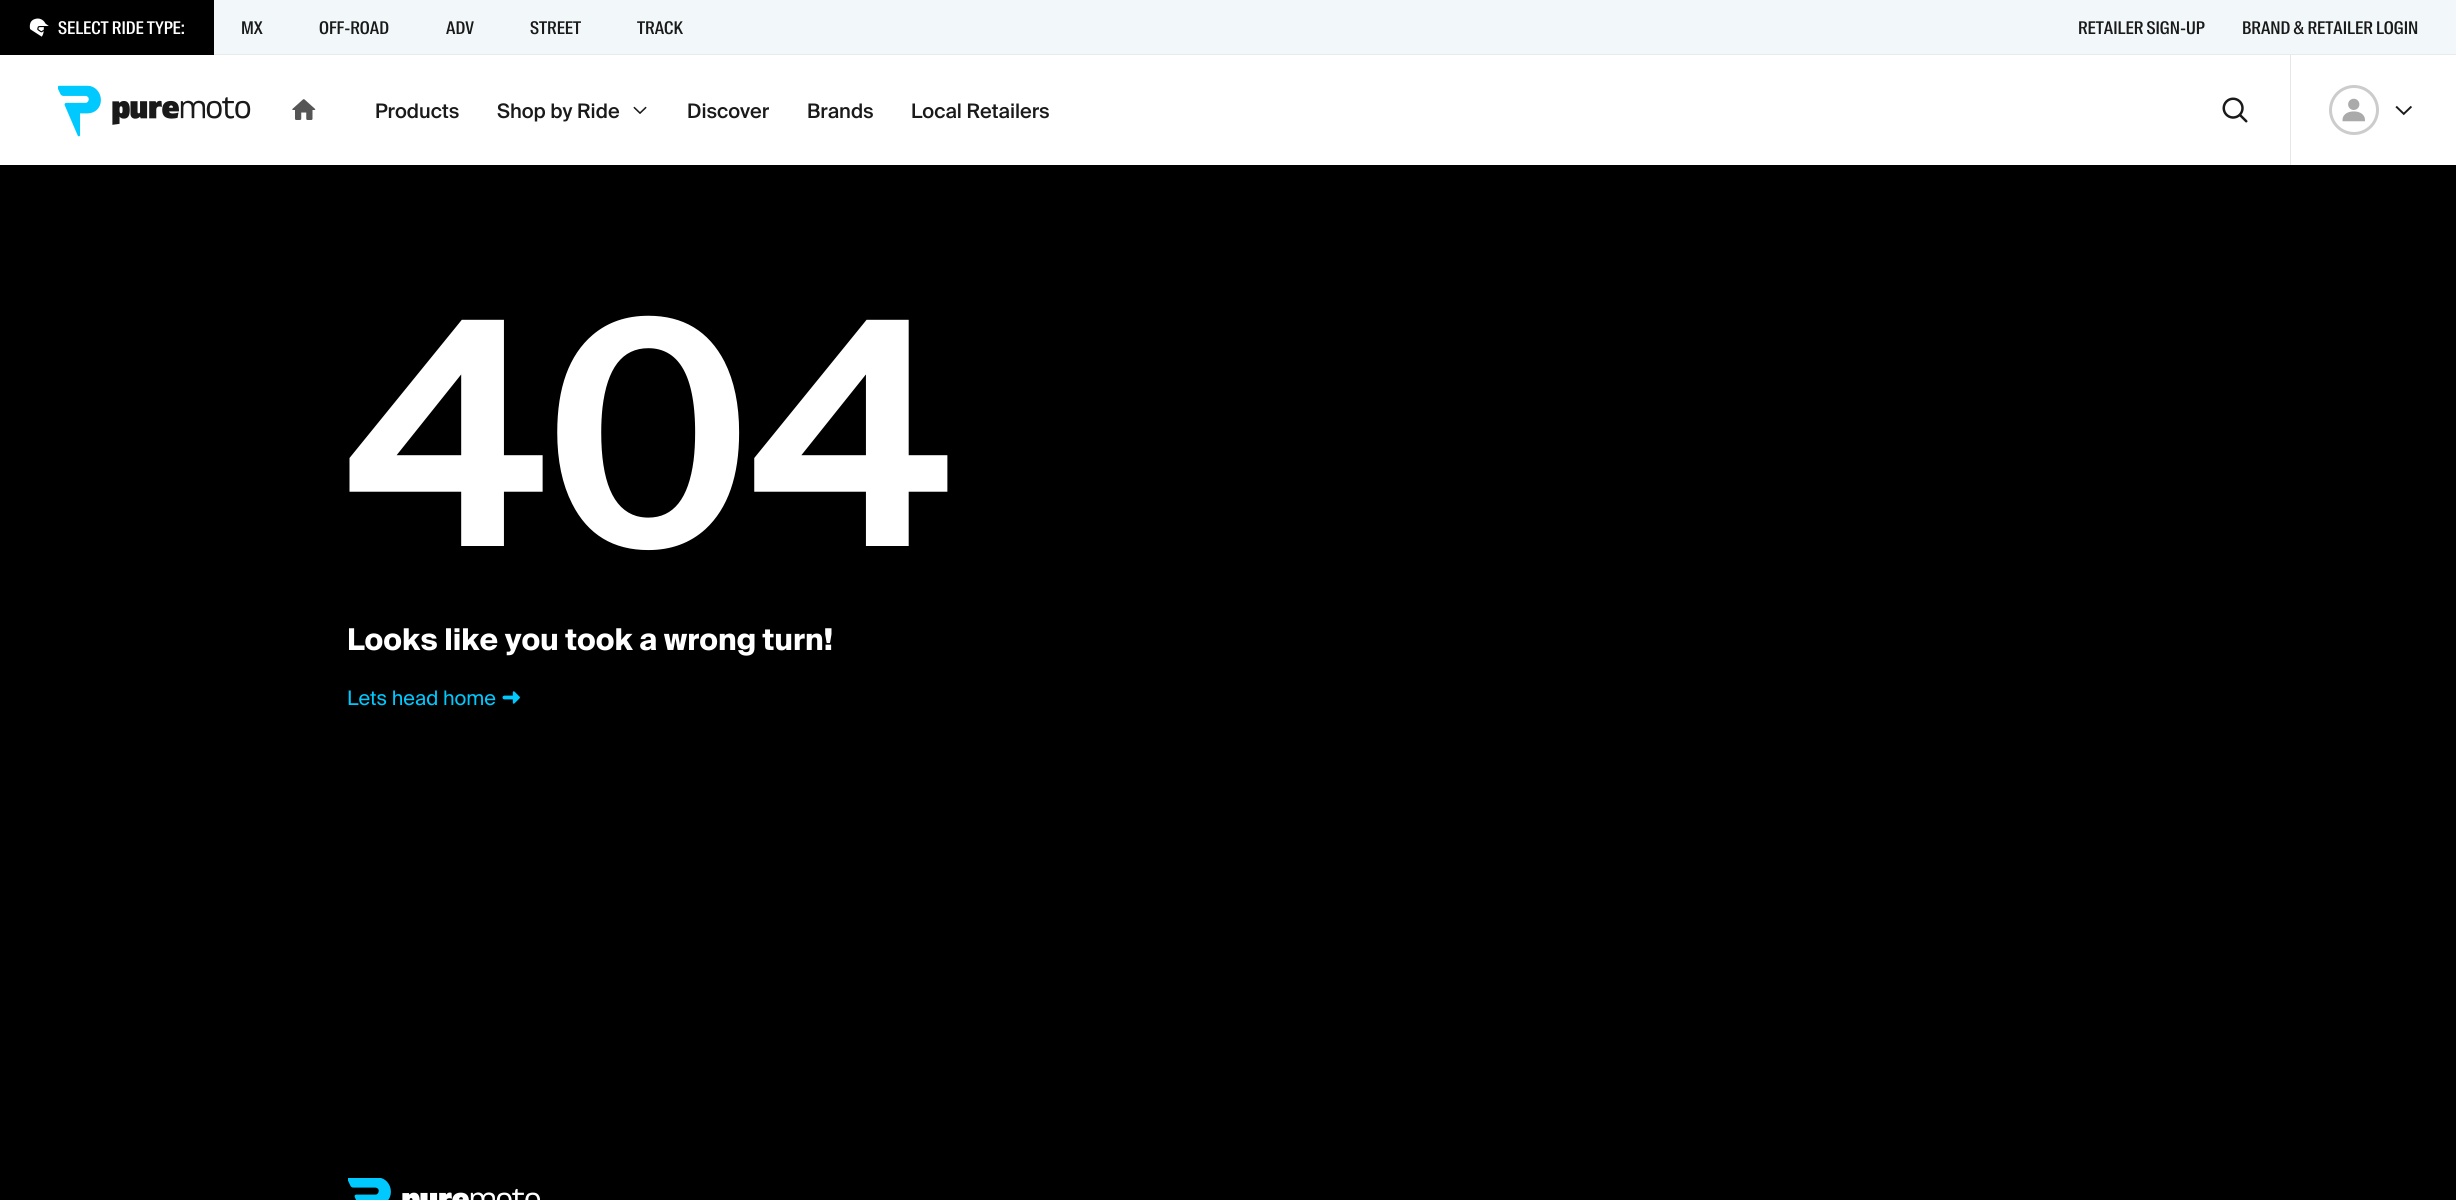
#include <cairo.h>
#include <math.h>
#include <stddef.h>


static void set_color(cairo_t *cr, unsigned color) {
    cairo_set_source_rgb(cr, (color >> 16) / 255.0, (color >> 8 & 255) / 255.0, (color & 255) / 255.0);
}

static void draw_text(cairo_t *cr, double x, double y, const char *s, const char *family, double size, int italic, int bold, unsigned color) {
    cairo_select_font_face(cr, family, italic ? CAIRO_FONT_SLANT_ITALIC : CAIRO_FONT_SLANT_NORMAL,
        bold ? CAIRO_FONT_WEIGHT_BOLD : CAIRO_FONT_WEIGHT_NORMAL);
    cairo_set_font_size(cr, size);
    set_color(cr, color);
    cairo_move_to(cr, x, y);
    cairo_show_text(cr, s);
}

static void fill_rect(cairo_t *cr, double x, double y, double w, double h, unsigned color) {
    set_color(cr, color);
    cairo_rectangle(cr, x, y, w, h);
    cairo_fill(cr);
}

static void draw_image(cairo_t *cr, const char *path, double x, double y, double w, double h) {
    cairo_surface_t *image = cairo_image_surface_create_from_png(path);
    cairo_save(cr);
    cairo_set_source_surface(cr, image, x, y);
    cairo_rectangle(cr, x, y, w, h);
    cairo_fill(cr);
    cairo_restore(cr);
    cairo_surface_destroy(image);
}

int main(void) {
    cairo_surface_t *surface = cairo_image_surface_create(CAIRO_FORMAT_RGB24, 2456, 1200);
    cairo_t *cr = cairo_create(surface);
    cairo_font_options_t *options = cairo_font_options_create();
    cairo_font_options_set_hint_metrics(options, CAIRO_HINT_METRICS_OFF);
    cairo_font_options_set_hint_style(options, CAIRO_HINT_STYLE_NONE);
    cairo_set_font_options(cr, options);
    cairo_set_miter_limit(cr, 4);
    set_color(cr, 0xFFFFFF);
    cairo_paint(cr);
    fill_rect(cr, 214, 0, 2242, 54, 0xF2F8FA);
    fill_rect(cr, 214, 54, 2242, 1, 0xE6ECEE);
    fill_rect(cr, 0, 0, 214, 55, 0x000000);
    draw_image(cr, "assets/img1.png", 29, 18, 20, 19);
    draw_text(cr, 58, 34, "SELECT RIDE TYPE:", "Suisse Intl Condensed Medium", 17.5, 0, 0, 0xFFFFFF);
    draw_text(cr, 241, 34, "MX", "Suisse Intl Condensed Medium", 17.5, 0, 0, 0x1A1A1A);
    draw_text(cr, 319, 34, "OFF-ROAD", "Suisse Intl Condensed Medium", 17.5, 0, 0, 0x1A1A1A);
    draw_text(cr, 446, 34, "ADV", "Suisse Intl Condensed Medium", 17.5, 0, 0, 0x1A1A1A);
    draw_text(cr, 530, 34, "STREET", "Suisse Intl Condensed Medium", 17.5, 0, 0, 0x1A1A1A);
    draw_text(cr, 637, 34, "TRACK", "Suisse Intl Condensed Medium", 17.5, 0, 0, 0x1A1A1A);
    draw_text(cr, 2078, 34, "RETAILER SIGN-UP", "Suisse Intl Condensed Medium", 17.5, 0, 0, 0x1A1A1A);
    draw_text(cr, 2242, 34, "BRAND & RETAILER LOGIN", "Suisse Intl Condensed Medium", 17.5, 0, 0, 0x1A1A1A);
    draw_image(cr, "assets/img2.png", 58, 85, 193, 52);
    draw_image(cr, "assets/img3.png", 292, 99, 24, 21);
    draw_text(cr, 375, 118, "Products", "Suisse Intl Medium", 20, 0, 0, 0x1A1A1A);
    draw_text(cr, 497, 118, "Shop by Ride", "Suisse Intl Medium", 20, 0, 0, 0x1A1A1A);
    draw_image(cr, "assets/img4.png", 633, 106, 14, 8);
    draw_text(cr, 687, 118, "Discover", "Suisse Intl Medium", 20, 0, 0, 0x1A1A1A);
    draw_text(cr, 807, 118, "Brands", "Suisse Intl Medium", 20, 0, 0, 0x1A1A1A);
    draw_text(cr, 911, 118, "Local Retailers", "Suisse Intl Medium", 20, 0, 0, 0x1A1A1A);
    draw_image(cr, "assets/img5.png", 2222, 97, 26, 26);
    fill_rect(cr, 2290, 55, 1, 110, 0xE6E6E6);
    draw_image(cr, "assets/img6.png", 2342, 98, 23, 24);
    cairo_arc(cr, 2354, 110, 23.5, 0, 2 * M_PI);
    set_color(cr, 0xCCCCCC);
    cairo_set_line_width(cr, 3);
    cairo_stroke(cr);
    draw_image(cr, "assets/img7.png", 2395, 105, 17, 11);
    fill_rect(cr, 0, 165, 2456, 1035, 0x000000);
    draw_image(cr, "assets/img8.png", 348, 1178, 192, 22);
    draw_text(cr, 347, 546, "404", "Suisse Intl SemiBold", 312, 0, 0, 0xFFFFFF);
    draw_text(cr, 347, 650, "Looks like you took a wrong turn!", "Suisse Intl", 30, 0, 1, 0xFFFFFF);
    draw_text(cr, 347, 705, "Lets head home", "Suisse Intl", 20, 0, 0, 0x00C9FF);
    draw_image(cr, "assets/img9.png", 502, 691, 18, 13);
    cairo_surface_write_to_png(surface, "output.png");
    cairo_font_options_destroy(options);
    cairo_destroy(cr);
    cairo_surface_destroy(surface);
    return 0;
}
